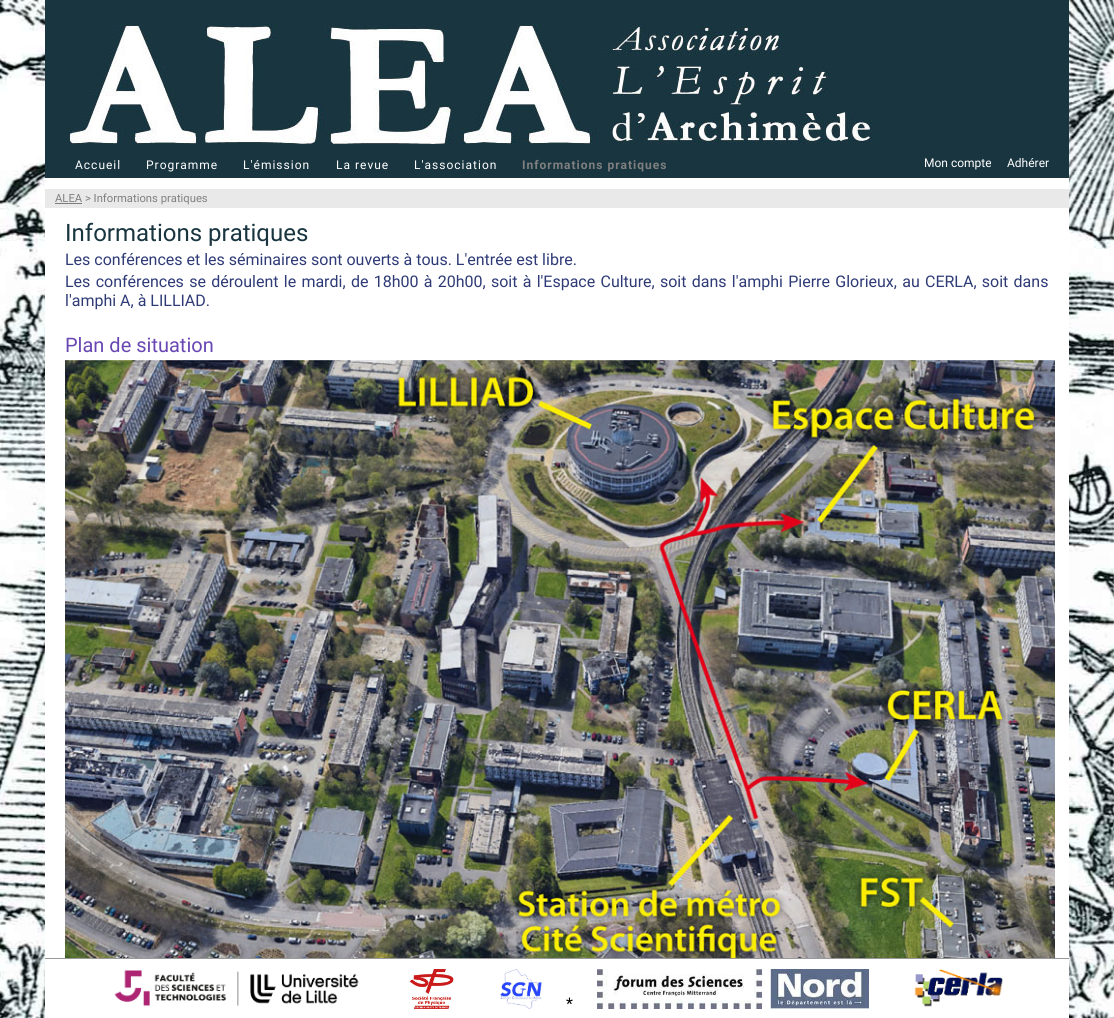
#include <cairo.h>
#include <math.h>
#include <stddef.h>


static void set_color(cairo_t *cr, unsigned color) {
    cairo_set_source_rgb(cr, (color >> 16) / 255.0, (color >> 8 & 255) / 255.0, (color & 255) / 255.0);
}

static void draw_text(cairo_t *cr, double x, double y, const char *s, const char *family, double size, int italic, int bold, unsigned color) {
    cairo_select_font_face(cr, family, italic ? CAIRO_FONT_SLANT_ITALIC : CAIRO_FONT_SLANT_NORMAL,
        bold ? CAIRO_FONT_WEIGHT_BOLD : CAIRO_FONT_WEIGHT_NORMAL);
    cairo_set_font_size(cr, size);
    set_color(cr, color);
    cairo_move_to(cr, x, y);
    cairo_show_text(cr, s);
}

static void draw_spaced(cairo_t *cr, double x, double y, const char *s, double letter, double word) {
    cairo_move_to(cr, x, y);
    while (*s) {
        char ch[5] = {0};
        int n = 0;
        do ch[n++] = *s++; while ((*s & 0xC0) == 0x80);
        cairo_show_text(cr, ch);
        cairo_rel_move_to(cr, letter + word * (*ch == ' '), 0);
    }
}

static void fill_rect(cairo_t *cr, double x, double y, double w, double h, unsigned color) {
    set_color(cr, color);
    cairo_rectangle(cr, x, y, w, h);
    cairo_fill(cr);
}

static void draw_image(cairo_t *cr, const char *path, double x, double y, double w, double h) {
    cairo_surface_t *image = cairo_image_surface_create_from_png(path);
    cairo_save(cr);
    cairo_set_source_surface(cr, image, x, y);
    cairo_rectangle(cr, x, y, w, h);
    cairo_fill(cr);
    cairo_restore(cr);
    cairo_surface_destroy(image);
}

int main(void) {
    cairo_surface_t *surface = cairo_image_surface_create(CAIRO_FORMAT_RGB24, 1114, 1018);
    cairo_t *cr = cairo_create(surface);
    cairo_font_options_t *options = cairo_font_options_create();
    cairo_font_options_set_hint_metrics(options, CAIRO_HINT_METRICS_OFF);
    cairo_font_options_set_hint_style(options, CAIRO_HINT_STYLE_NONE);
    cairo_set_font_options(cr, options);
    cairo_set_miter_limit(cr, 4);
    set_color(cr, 0xFFFFFF);
    cairo_paint(cr);
    draw_image(cr, "assets/img1.png", 0, 0, 1114, 1018);
    fill_rect(cr, 45, 178, 1024, 780, 0xFFFFFF);
    draw_image(cr, "assets/img2.png", 45, 0, 1024, 178);
    cairo_select_font_face(cr, "Roboto", CAIRO_FONT_SLANT_NORMAL, CAIRO_FONT_WEIGHT_NORMAL);
    cairo_set_font_size(cr, 12);
    draw_spaced(cr, 75, 169, "Accueil", 1, 0);
    draw_spaced(cr, 146, 169, "Programme", 1, 0);
    draw_spaced(cr, 243, 169, "L'émission", 1, 0);
    draw_spaced(cr, 336, 169, "La revue", 1, 0);
    draw_spaced(cr, 414, 169, "L'association", 1, 0);
    cairo_select_font_face(cr, "Roboto", CAIRO_FONT_SLANT_NORMAL, CAIRO_FONT_WEIGHT_BOLD);
    set_color(cr, 0x808080);
    draw_spaced(cr, 522, 169, "Informations pratiques", 1, 0);
    draw_text(cr, 924, 167, "Mon compte", "Roboto", 12, 0, 0, 0xFFFFFF);
    draw_text(cr, 1007, 167, "Adhérer", "Roboto", 12, 0, 0, 0xFFFFFF);
    fill_rect(cr, 45, 189, 1024, 19, 0xE9E9E9);
    fill_rect(cr, 55, 203, 27, 1, 0x7C7C7C);
    draw_text(cr, 55, 202, "ALEA > Informations pratiques", "Roboto", 11.25, 0, 0, 0x808080);
    draw_text(cr, 65, 241, "Informations pratiques", "Roboto", 24, 0, 0, 0x193540);
    draw_text(cr, 65, 265, "Les conférences et les séminaires sont ouverts à tous. L'entrée est libre.", "Roboto", 16, 0, 0, 0x2E3B76);
    draw_spaced(cr, 65, 287, "Les conférences se déroulent le mardi, de 18h00 à 20h00, soit à l'Espace Culture, soit dans l'amphi Pierre Glorieux, au CERLA, soit dans", 0, 1.3);
    draw_text(cr, 65, 306, "l'amphi A, à LILLIAD.", "Roboto", 16, 0, 0, 0x2E3B76);
    draw_text(cr, 65, 352, "Plan de situation", "Roboto", 20, 0, 0, 0x6947B2);
    draw_image(cr, "assets/img3.png", 65, 360, 990, 598);
    fill_rect(cr, 45, 959, 1024, 59, 0xFFFFFF);
    fill_rect(cr, 45, 958, 1024, 1, 0x999999);
    draw_image(cr, "assets/img4.png", 114, 970, 245, 37);
    draw_image(cr, "assets/img5.png", 409, 969, 45, 40);
    draw_image(cr, "assets/img6.png", 500, 969, 42, 40);
    draw_text(cr, 566, 1009, "*", "Roboto", 16, 0, 0, 0x000000);
    draw_image(cr, "assets/img7.png", 597, 969, 272, 40);
    draw_image(cr, "assets/img8.png", 914, 969, 89, 38);
    cairo_surface_write_to_png(surface, "output.png");
    cairo_font_options_destroy(options);
    cairo_destroy(cr);
    cairo_surface_destroy(surface);
    return 0;
}
